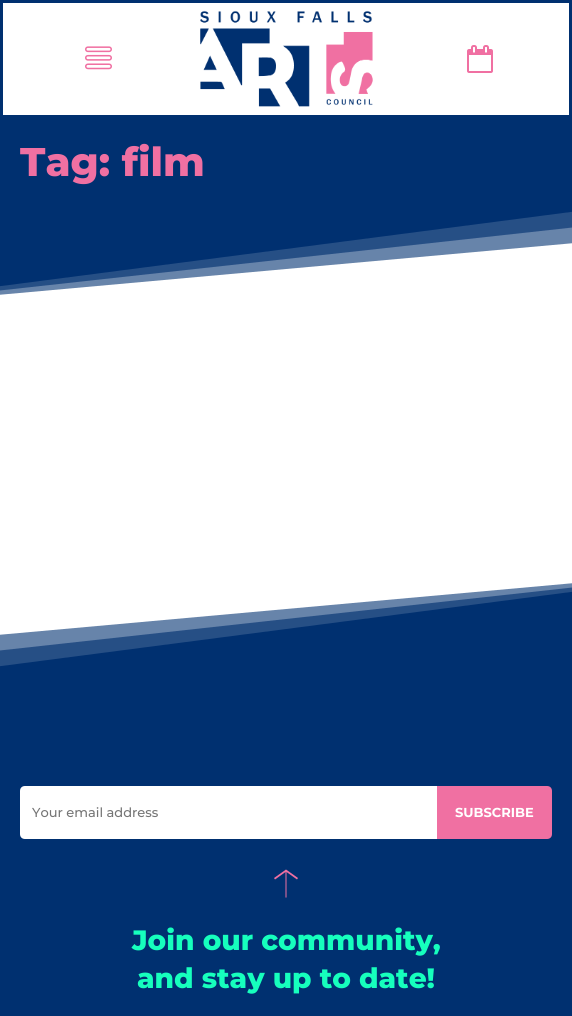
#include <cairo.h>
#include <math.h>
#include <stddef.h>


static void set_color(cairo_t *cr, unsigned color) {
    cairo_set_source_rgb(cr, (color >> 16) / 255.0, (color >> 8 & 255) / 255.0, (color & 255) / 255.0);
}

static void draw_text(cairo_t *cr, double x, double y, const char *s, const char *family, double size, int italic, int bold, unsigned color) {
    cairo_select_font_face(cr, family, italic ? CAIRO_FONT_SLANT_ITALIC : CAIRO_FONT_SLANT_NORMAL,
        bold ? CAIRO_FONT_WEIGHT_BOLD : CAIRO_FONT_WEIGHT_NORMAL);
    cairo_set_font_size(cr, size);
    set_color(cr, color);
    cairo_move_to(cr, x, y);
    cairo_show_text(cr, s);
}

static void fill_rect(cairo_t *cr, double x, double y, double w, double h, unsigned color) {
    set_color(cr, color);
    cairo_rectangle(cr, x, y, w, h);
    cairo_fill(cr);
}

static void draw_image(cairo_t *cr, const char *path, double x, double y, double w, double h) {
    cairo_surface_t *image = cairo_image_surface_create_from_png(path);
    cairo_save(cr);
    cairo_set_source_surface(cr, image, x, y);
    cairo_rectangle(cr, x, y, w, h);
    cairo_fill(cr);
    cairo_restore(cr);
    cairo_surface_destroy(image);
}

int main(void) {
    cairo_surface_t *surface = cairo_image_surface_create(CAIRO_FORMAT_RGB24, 572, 1016);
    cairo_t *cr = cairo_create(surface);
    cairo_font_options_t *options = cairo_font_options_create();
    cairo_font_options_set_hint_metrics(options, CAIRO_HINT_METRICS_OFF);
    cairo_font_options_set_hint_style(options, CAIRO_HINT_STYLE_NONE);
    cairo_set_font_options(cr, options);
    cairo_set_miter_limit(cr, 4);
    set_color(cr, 0xFFFFFF);
    cairo_paint(cr);
    cairo_rectangle(cr, 1.5, 1.5, 569, 115);
    set_color(cr, 0x003070);
    cairo_set_line_width(cr, 3);
    cairo_stroke(cr);
    draw_image(cr, "assets/img1.png", 85, 46, 27, 24);
    draw_image(cr, "assets/img2.png", 200, 10, 173, 97);
    draw_image(cr, "assets/img3.png", 467, 45, 26, 28);
    fill_rect(cr, 0, 118, 572, 177, 0x003070);
    draw_text(cr, 20, 176, "Tag: film", "Montserrat ExtraBold", 40, 0, 0, 0xF070A2);
    cairo_save(cr);
    cairo_rectangle(cr, 0, 119, 572, 199);
    cairo_clip(cr);
    set_color(cr, 0xFFFFFF);
    cairo_new_path(cr);
    cairo_move_to(cr, 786, 469);
    cairo_line_to(cr, 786, 224);
    cairo_line_to(cr, -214, 314);
    cairo_line_to(cr, -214, 469);
    cairo_close_path(cr);
    cairo_fill(cr);
    cairo_set_source_rgba(cr, 1, 1, 1, 0.3);
    cairo_new_path(cr);
    cairo_move_to(cr, 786, 469);
    cairo_line_to(cr, 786, 204);
    cairo_line_to(cr, -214, 314);
    cairo_line_to(cr, -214, 469);
    cairo_close_path(cr);
    cairo_fill(cr);
    cairo_set_source_rgba(cr, 1, 1, 1, 0.15);
    cairo_new_path(cr);
    cairo_move_to(cr, 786, 469);
    cairo_line_to(cr, 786, 184);
    cairo_line_to(cr, -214, 314);
    cairo_line_to(cr, -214, 469);
    cairo_close_path(cr);
    cairo_fill(cr);
    cairo_restore(cr);
    fill_rect(cr, 0, 583, 572, 433, 0x003070);
    cairo_save(cr);
    cairo_rectangle(cr, 0, 559, 572, 200);
    cairo_clip(cr);
    set_color(cr, 0xFFFFFF);
    cairo_new_path(cr);
    cairo_move_to(cr, -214, 408);
    cairo_line_to(cr, -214, 654);
    cairo_line_to(cr, 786, 564);
    cairo_line_to(cr, 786, 408);
    cairo_close_path(cr);
    cairo_fill(cr);
    cairo_set_source_rgba(cr, 1, 1, 1, 0.3);
    cairo_new_path(cr);
    cairo_move_to(cr, -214, 408);
    cairo_line_to(cr, -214, 674);
    cairo_line_to(cr, 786, 564);
    cairo_line_to(cr, 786, 408);
    cairo_close_path(cr);
    cairo_fill(cr);
    cairo_set_source_rgba(cr, 1, 1, 1, 0.15);
    cairo_new_path(cr);
    cairo_move_to(cr, -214, 408);
    cairo_line_to(cr, -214, 694);
    cairo_line_to(cr, 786, 564);
    cairo_line_to(cr, 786, 408);
    cairo_close_path(cr);
    cairo_fill(cr);
    cairo_restore(cr);
    set_color(cr, 0xFFFFFF);
    cairo_new_path(cr);
    cairo_move_to(cr, 25, 786);
    cairo_line_to(cr, 437, 786);
    cairo_line_to(cr, 437, 839);
    cairo_line_to(cr, 25, 839);
    cairo_curve_to(cr, 22, 839, 20, 837, 20, 834);
    cairo_line_to(cr, 20, 791);
    cairo_curve_to(cr, 20, 788, 22, 786, 25, 786);
    cairo_close_path(cr);
    cairo_fill(cr);
    draw_text(cr, 32, 817, "Your email address", "Montserrat Medium", 13, 0, 0, 0x757575);
    set_color(cr, 0xF070A2);
    cairo_new_path(cr);
    cairo_move_to(cr, 437, 786);
    cairo_line_to(cr, 547, 786);
    cairo_curve_to(cr, 550, 786, 552, 788, 552, 791);
    cairo_line_to(cr, 552, 834);
    cairo_curve_to(cr, 552, 837, 550, 839, 547, 839);
    cairo_line_to(cr, 437, 839);
    cairo_close_path(cr);
    cairo_fill(cr);
    draw_text(cr, 455, 817, "SUBSCRIBE", "Montserrat", 13, 0, 1, 0xFFFFFF);
    set_color(cr, 0xF070A2);
    cairo_new_path(cr);
    cairo_move_to(cr, 285.5, 872);
    cairo_line_to(cr, 285.5, 897.5);
    cairo_line_to(cr, 286.5, 897.5);
    cairo_line_to(cr, 286.5, 872);
    cairo_line_to(cr, 297, 879.5);
    cairo_line_to(cr, 298, 878);
    cairo_line_to(cr, 286, 869.5);
    cairo_line_to(cr, 274, 878);
    cairo_line_to(cr, 275, 879.5);
    cairo_close_path(cr);
    cairo_fill(cr);
    draw_text(cr, 132, 950, "Join our community,", "Montserrat ExtraBold", 28, 0, 0, 0x16FFBD);
    draw_text(cr, 137, 988, "and stay up to date!", "Montserrat ExtraBold", 28, 0, 0, 0x16FFBD);
    cairo_surface_write_to_png(surface, "output.png");
    cairo_font_options_destroy(options);
    cairo_destroy(cr);
    cairo_surface_destroy(surface);
    return 0;
}
